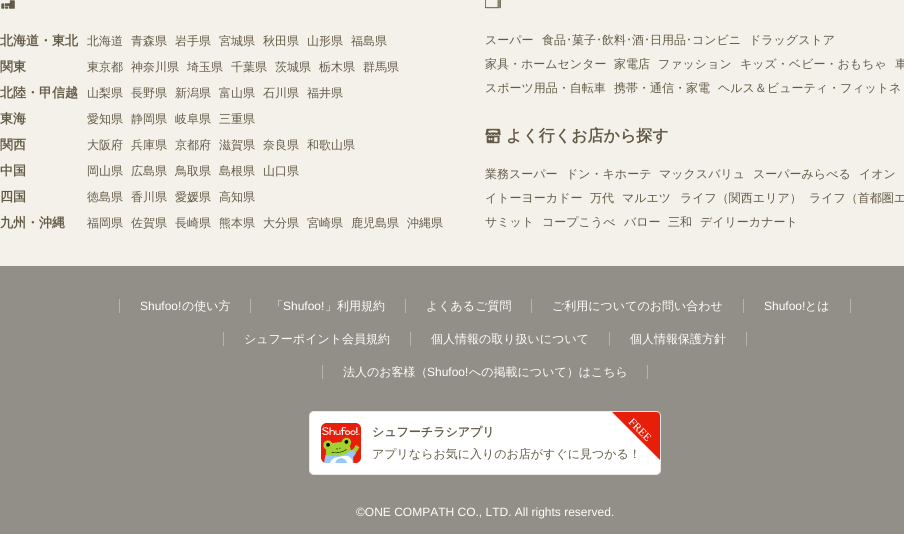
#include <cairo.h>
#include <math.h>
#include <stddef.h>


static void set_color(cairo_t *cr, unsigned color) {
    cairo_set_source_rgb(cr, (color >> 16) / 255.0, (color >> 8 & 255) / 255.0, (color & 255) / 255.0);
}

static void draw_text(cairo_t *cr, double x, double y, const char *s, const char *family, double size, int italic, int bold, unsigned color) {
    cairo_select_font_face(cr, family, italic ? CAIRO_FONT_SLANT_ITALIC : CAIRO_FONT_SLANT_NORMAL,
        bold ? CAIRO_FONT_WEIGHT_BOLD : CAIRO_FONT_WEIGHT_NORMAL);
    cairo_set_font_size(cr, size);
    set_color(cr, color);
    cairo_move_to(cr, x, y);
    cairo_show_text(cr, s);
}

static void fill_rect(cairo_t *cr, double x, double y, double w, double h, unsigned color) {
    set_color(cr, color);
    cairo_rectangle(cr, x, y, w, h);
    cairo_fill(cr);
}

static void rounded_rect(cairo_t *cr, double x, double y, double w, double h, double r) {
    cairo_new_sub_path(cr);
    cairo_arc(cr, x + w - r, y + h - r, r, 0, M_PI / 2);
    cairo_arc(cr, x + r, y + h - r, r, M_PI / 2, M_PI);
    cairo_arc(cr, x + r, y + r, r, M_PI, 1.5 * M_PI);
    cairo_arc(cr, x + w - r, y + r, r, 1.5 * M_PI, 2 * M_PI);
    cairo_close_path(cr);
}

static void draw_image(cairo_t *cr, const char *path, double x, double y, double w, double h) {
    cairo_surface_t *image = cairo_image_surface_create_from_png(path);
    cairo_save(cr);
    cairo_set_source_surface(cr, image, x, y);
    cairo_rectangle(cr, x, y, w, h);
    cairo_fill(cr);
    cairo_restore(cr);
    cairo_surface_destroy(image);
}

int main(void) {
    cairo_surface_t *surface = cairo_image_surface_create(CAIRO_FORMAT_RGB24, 904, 534);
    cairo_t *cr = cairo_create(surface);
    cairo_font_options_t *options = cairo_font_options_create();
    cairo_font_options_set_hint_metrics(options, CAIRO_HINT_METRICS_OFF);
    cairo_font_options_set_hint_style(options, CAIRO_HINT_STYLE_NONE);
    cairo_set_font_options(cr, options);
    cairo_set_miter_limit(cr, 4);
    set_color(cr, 0xF4F0EA);
    cairo_paint(cr);
    draw_image(cr, "assets/img1.png", 0, 0, 16, 10);
    draw_text(cr, 0, 45, "北海道・東北", "WenQuanYi Zen Hei", 13, 0, 1, 0x635B47);
    draw_text(cr, 87, 45, "北海道", "WenQuanYi Zen Hei Medium", 12, 0, 0, 0x635B47);
    draw_text(cr, 131, 45, "青森県", "WenQuanYi Zen Hei Medium", 12, 0, 0, 0x635B47);
    draw_text(cr, 175, 45, "岩手県", "WenQuanYi Zen Hei Medium", 12, 0, 0, 0x635B47);
    draw_text(cr, 219, 45, "宮城県", "WenQuanYi Zen Hei Medium", 12, 0, 0, 0x635B47);
    draw_text(cr, 263, 45, "秋田県", "WenQuanYi Zen Hei Medium", 12, 0, 0, 0x635B47);
    draw_text(cr, 307, 45, "山形県", "WenQuanYi Zen Hei Medium", 12, 0, 0, 0x635B47);
    draw_text(cr, 351, 45, "福島県", "WenQuanYi Zen Hei Medium", 12, 0, 0, 0x635B47);
    draw_text(cr, 0, 71, "関東", "WenQuanYi Zen Hei", 13, 0, 1, 0x635B47);
    draw_text(cr, 87, 71, "東京都", "WenQuanYi Zen Hei Medium", 12, 0, 0, 0x635B47);
    draw_text(cr, 131, 71, "神奈川県", "WenQuanYi Zen Hei Medium", 12, 0, 0, 0x635B47);
    draw_text(cr, 187, 71, "埼玉県", "WenQuanYi Zen Hei Medium", 12, 0, 0, 0x635B47);
    draw_text(cr, 231, 71, "千葉県", "WenQuanYi Zen Hei Medium", 12, 0, 0, 0x635B47);
    draw_text(cr, 275, 71, "茨城県", "WenQuanYi Zen Hei Medium", 12, 0, 0, 0x635B47);
    draw_text(cr, 319, 71, "栃木県", "WenQuanYi Zen Hei Medium", 12, 0, 0, 0x635B47);
    draw_text(cr, 363, 71, "群馬県", "WenQuanYi Zen Hei Medium", 12, 0, 0, 0x635B47);
    draw_text(cr, 0, 97, "北陸・甲信越", "WenQuanYi Zen Hei", 13, 0, 1, 0x635B47);
    draw_text(cr, 87, 97, "山梨県", "WenQuanYi Zen Hei Medium", 12, 0, 0, 0x635B47);
    draw_text(cr, 131, 97, "長野県", "WenQuanYi Zen Hei Medium", 12, 0, 0, 0x635B47);
    draw_text(cr, 175, 97, "新潟県", "WenQuanYi Zen Hei Medium", 12, 0, 0, 0x635B47);
    draw_text(cr, 219, 97, "富山県", "WenQuanYi Zen Hei Medium", 12, 0, 0, 0x635B47);
    draw_text(cr, 263, 97, "石川県", "WenQuanYi Zen Hei Medium", 12, 0, 0, 0x635B47);
    draw_text(cr, 307, 97, "福井県", "WenQuanYi Zen Hei Medium", 12, 0, 0, 0x635B47);
    draw_text(cr, 0, 123, "東海", "WenQuanYi Zen Hei", 13, 0, 1, 0x635B47);
    draw_text(cr, 87, 123, "愛知県", "WenQuanYi Zen Hei Medium", 12, 0, 0, 0x635B47);
    draw_text(cr, 131, 123, "静岡県", "WenQuanYi Zen Hei Medium", 12, 0, 0, 0x635B47);
    draw_text(cr, 175, 123, "岐阜県", "WenQuanYi Zen Hei Medium", 12, 0, 0, 0x635B47);
    draw_text(cr, 219, 123, "三重県", "WenQuanYi Zen Hei Medium", 12, 0, 0, 0x635B47);
    draw_text(cr, 0, 149, "関西", "WenQuanYi Zen Hei", 13, 0, 1, 0x635B47);
    draw_text(cr, 87, 149, "大阪府", "WenQuanYi Zen Hei Medium", 12, 0, 0, 0x635B47);
    draw_text(cr, 131, 149, "兵庫県", "WenQuanYi Zen Hei Medium", 12, 0, 0, 0x635B47);
    draw_text(cr, 175, 149, "京都府", "WenQuanYi Zen Hei Medium", 12, 0, 0, 0x635B47);
    draw_text(cr, 219, 149, "滋賀県", "WenQuanYi Zen Hei Medium", 12, 0, 0, 0x635B47);
    draw_text(cr, 263, 149, "奈良県", "WenQuanYi Zen Hei Medium", 12, 0, 0, 0x635B47);
    draw_text(cr, 307, 149, "和歌山県", "WenQuanYi Zen Hei Medium", 12, 0, 0, 0x635B47);
    draw_text(cr, 0, 175, "中国", "WenQuanYi Zen Hei", 13, 0, 1, 0x635B47);
    draw_text(cr, 87, 175, "岡山県", "WenQuanYi Zen Hei Medium", 12, 0, 0, 0x635B47);
    draw_text(cr, 131, 175, "広島県", "WenQuanYi Zen Hei Medium", 12, 0, 0, 0x635B47);
    draw_text(cr, 175, 175, "鳥取県", "WenQuanYi Zen Hei Medium", 12, 0, 0, 0x635B47);
    draw_text(cr, 219, 175, "島根県", "WenQuanYi Zen Hei Medium", 12, 0, 0, 0x635B47);
    draw_text(cr, 263, 175, "山口県", "WenQuanYi Zen Hei Medium", 12, 0, 0, 0x635B47);
    draw_text(cr, 0, 201, "四国", "WenQuanYi Zen Hei", 13, 0, 1, 0x635B47);
    draw_text(cr, 87, 201, "徳島県", "WenQuanYi Zen Hei Medium", 12, 0, 0, 0x635B47);
    draw_text(cr, 131, 201, "香川県", "WenQuanYi Zen Hei Medium", 12, 0, 0, 0x635B47);
    draw_text(cr, 175, 201, "愛媛県", "WenQuanYi Zen Hei Medium", 12, 0, 0, 0x635B47);
    draw_text(cr, 219, 201, "高知県", "WenQuanYi Zen Hei Medium", 12, 0, 0, 0x635B47);
    draw_text(cr, 0, 227, "九州・沖縄", "WenQuanYi Zen Hei", 13, 0, 1, 0x635B47);
    draw_text(cr, 87, 227, "福岡県", "WenQuanYi Zen Hei Medium", 12, 0, 0, 0x635B47);
    draw_text(cr, 131, 227, "佐賀県", "WenQuanYi Zen Hei Medium", 12, 0, 0, 0x635B47);
    draw_text(cr, 175, 227, "長崎県", "WenQuanYi Zen Hei Medium", 12, 0, 0, 0x635B47);
    draw_text(cr, 219, 227, "熊本県", "WenQuanYi Zen Hei Medium", 12, 0, 0, 0x635B47);
    draw_text(cr, 263, 227, "大分県", "WenQuanYi Zen Hei Medium", 12, 0, 0, 0x635B47);
    draw_text(cr, 307, 227, "宮崎県", "WenQuanYi Zen Hei Medium", 12, 0, 0, 0x635B47);
    draw_text(cr, 351, 227, "鹿児島県", "WenQuanYi Zen Hei Medium", 12, 0, 0, 0x635B47);
    draw_text(cr, 407, 227, "沖縄県", "WenQuanYi Zen Hei Medium", 12, 0, 0, 0x635B47);
    draw_image(cr, "assets/img2.png", 485, 0, 16, 9);
    draw_text(cr, 485, 44, "スーパー", "WenQuanYi Zen Hei Medium", 12, 0, 0, 0x635B47);
    draw_text(cr, 542, 44, "食品", "WenQuanYi Zen Hei Medium", 12, 0, 0, 0x635B47);
    draw_text(cr, 566, 44, "･", "IPAPGothic", 12, 0, 0, 0x635B47);
    draw_text(cr, 572, 44, "菓子", "WenQuanYi Zen Hei Medium", 12, 0, 0, 0x635B47);
    draw_text(cr, 596, 44, "･", "IPAPGothic", 12, 0, 0, 0x635B47);
    draw_text(cr, 602, 44, "飲料", "WenQuanYi Zen Hei Medium", 12, 0, 0, 0x635B47);
    draw_text(cr, 626, 44, "･", "IPAPGothic", 12, 0, 0, 0x635B47);
    draw_text(cr, 632, 44, "酒", "WenQuanYi Zen Hei Medium", 12, 0, 0, 0x635B47);
    draw_text(cr, 644, 44, "･", "IPAPGothic", 12, 0, 0, 0x635B47);
    draw_text(cr, 650, 44, "日用品", "WenQuanYi Zen Hei Medium", 12, 0, 0, 0x635B47);
    draw_text(cr, 686, 44, "･", "IPAPGothic", 12, 0, 0, 0x635B47);
    draw_text(cr, 692, 44, "コンビニ", "WenQuanYi Zen Hei Medium", 12, 0, 0, 0x635B47);
    draw_text(cr, 749, 44, "ドラッグストア", "WenQuanYi Zen Hei Medium", 12, 0, 0, 0x635B47);
    draw_text(cr, 485, 68, "家具・ホームセンター", "WenQuanYi Zen Hei Medium", 12, 0, 0, 0x635B47);
    draw_text(cr, 614, 68, "家電店", "WenQuanYi Zen Hei Medium", 12, 0, 0, 0x635B47);
    draw_text(cr, 658, 68, "ファッション", "WenQuanYi Zen Hei Medium", 12, 0, 0, 0x635B47);
    draw_text(cr, 740, 68, "キッズ・ベビー・おもちゃ", "WenQuanYi Zen Hei Medium", 12, 0, 0, 0x635B47);
    draw_text(cr, 895, 68, "車", "WenQuanYi Zen Hei Medium", 12, 0, 0, 0x635B47);
    draw_text(cr, 485, 92, "スポーツ用品・自転車", "WenQuanYi Zen Hei Medium", 12, 0, 0, 0x635B47);
    draw_text(cr, 614, 92, "携帯・通信・家電", "WenQuanYi Zen Hei Medium", 12, 0, 0, 0x635B47);
    draw_text(cr, 718, 92, "ヘルス＆ビューティ・フィットネ", "WenQuanYi Zen Hei Medium", 12, 0, 0, 0x635B47);
    draw_image(cr, "assets/img3.png", 485, 128, 16, 16);
    draw_text(cr, 506, 141, "よく行くお店から探す", "WenQuanYi Zen Hei", 16, 0, 1, 0x635B47);
    draw_text(cr, 485, 178, "業務スーパー", "WenQuanYi Zen Hei Medium", 12, 0, 0, 0x635B47);
    draw_text(cr, 566, 178, "ドン・キホーテ", "WenQuanYi Zen Hei Medium", 12, 0, 0, 0x635B47);
    draw_text(cr, 659, 178, "マックスバリュ", "WenQuanYi Zen Hei Medium", 12, 0, 0, 0x635B47);
    draw_text(cr, 753, 178, "スーパーみらべる", "WenQuanYi Zen Hei Medium", 12, 0, 0, 0x635B47);
    draw_text(cr, 859, 178, "イオン", "WenQuanYi Zen Hei Medium", 12, 0, 0, 0x635B47);
    draw_text(cr, 485, 202, "イトーヨーカドー", "WenQuanYi Zen Hei Medium", 12, 0, 0, 0x635B47);
    draw_text(cr, 590, 202, "万代", "WenQuanYi Zen Hei Medium", 12, 0, 0, 0x635B47);
    draw_text(cr, 622, 202, "マルエツ", "WenQuanYi Zen Hei Medium", 12, 0, 0, 0x635B47);
    draw_text(cr, 680, 202, "ライフ（関西エリア）", "WenQuanYi Zen Hei Medium", 12, 0, 0, 0x635B47);
    draw_text(cr, 809, 202, "ライフ（首都圏エ", "WenQuanYi Zen Hei Medium", 12, 0, 0, 0x635B47);
    draw_text(cr, 485, 226, "サミット", "WenQuanYi Zen Hei Medium", 12, 0, 0, 0x635B47);
    draw_text(cr, 542, 226, "コープこうべ", "WenQuanYi Zen Hei Medium", 12, 0, 0, 0x635B47);
    draw_text(cr, 624, 226, "バロー", "WenQuanYi Zen Hei Medium", 12, 0, 0, 0x635B47);
    draw_text(cr, 668, 226, "三和", "WenQuanYi Zen Hei Medium", 12, 0, 0, 0x635B47);
    draw_text(cr, 700, 226, "デイリーカナート", "WenQuanYi Zen Hei Medium", 12, 0, 0, 0x635B47);
    fill_rect(cr, 0, 266, 904, 268, 0x928E88);
    fill_rect(cr, 250, 299, 1, 14, 0xB9B3A9);
    fill_rect(cr, 119, 299, 1, 14, 0xB9B3A9);
    draw_text(cr, 140, 310, "Shufoo!", "Liberation Sans", 12, 0, 0, 0xFFFFFF);
    draw_text(cr, 182, 310, "の使い方", "WenQuanYi Zen Hei Medium", 12, 0, 0, 0xFFFFFF);
    fill_rect(cr, 405, 299, 1, 14, 0xB9B3A9);
    draw_text(cr, 271, 310, "「", "WenQuanYi Zen Hei Medium", 12, 0, 0, 0xFFFFFF);
    draw_text(cr, 283, 310, "Shufoo!", "Liberation Sans", 12, 0, 0, 0xFFFFFF);
    draw_text(cr, 325, 310, "」利用規約", "WenQuanYi Zen Hei Medium", 12, 0, 0, 0xFFFFFF);
    fill_rect(cr, 531, 299, 1, 14, 0xB9B3A9);
    draw_text(cr, 426, 310, "よくあるご質問", "WenQuanYi Zen Hei Medium", 12, 0, 0, 0xFFFFFF);
    fill_rect(cr, 743, 299, 1, 14, 0xB9B3A9);
    draw_text(cr, 552, 310, "ご利用についてのお問い合わせ", "WenQuanYi Zen Hei Medium", 12, 0, 0, 0xFFFFFF);
    fill_rect(cr, 850, 299, 1, 14, 0xB9B3A9);
    draw_text(cr, 764, 310, "Shufoo!", "Liberation Sans", 12, 0, 0, 0xFFFFFF);
    draw_text(cr, 805, 310, "とは", "WenQuanYi Zen Hei Medium", 12, 0, 0, 0xFFFFFF);
    fill_rect(cr, 410, 332, 1, 14, 0xB9B3A9);
    fill_rect(cr, 223, 332, 1, 14, 0xB9B3A9);
    draw_text(cr, 244, 343, "シュフーポイント会員規約", "WenQuanYi Zen Hei Medium", 12, 0, 0, 0xFFFFFF);
    fill_rect(cr, 609, 332, 1, 14, 0xB9B3A9);
    draw_text(cr, 431, 343, "個人情報の取り扱いについて", "WenQuanYi Zen Hei Medium", 12, 0, 0, 0xFFFFFF);
    fill_rect(cr, 746, 332, 1, 14, 0xB9B3A9);
    draw_text(cr, 630, 343, "個人情報保護方針", "WenQuanYi Zen Hei Medium", 12, 0, 0, 0xFFFFFF);
    fill_rect(cr, 647, 365, 1, 14, 0xB9B3A9);
    fill_rect(cr, 322, 365, 1, 14, 0xB9B3A9);
    draw_text(cr, 343, 376, "法人のお客様（", "WenQuanYi Zen Hei Medium", 12, 0, 0, 0xFFFFFF);
    draw_text(cr, 427, 376, "Shufoo!", "Liberation Sans", 12, 0, 0, 0xFFFFFF);
    draw_text(cr, 469, 376, "への掲載について）はこちら", "WenQuanYi Zen Hei Medium", 12, 0, 0, 0xFFFFFF);
    rounded_rect(cr, 309.5, 411.5, 351, 63, 4.5);
    cairo_fill_preserve(cr);
    set_color(cr, 0xEBE7E2);
    cairo_set_line_width(cr, 1);
    cairo_stroke(cr);
    draw_image(cr, "assets/img4.png", 321, 423, 40, 40);
    draw_text(cr, 372, 458, "アプリならお気に入りのお店がすぐに見つかる！", "WenQuanYi Zen Hei Medium", 12, 0, 0, 0x635B47);
    draw_image(cr, "assets/img5.png", 612, 412, 48, 48);
    draw_text(cr, 372, 436, "シュフーチラシアプリ", "WenQuanYi Zen Hei", 12, 0, 1, 0x635B47);
    draw_text(cr, 356, 516, "©ONE COMPATH CO., LTD. All rights reserved.", "Liberation Sans", 12, 0, 0, 0xFFFFFF);
    cairo_surface_write_to_png(surface, "output.png");
    cairo_font_options_destroy(options);
    cairo_destroy(cr);
    cairo_surface_destroy(surface);
    return 0;
}
